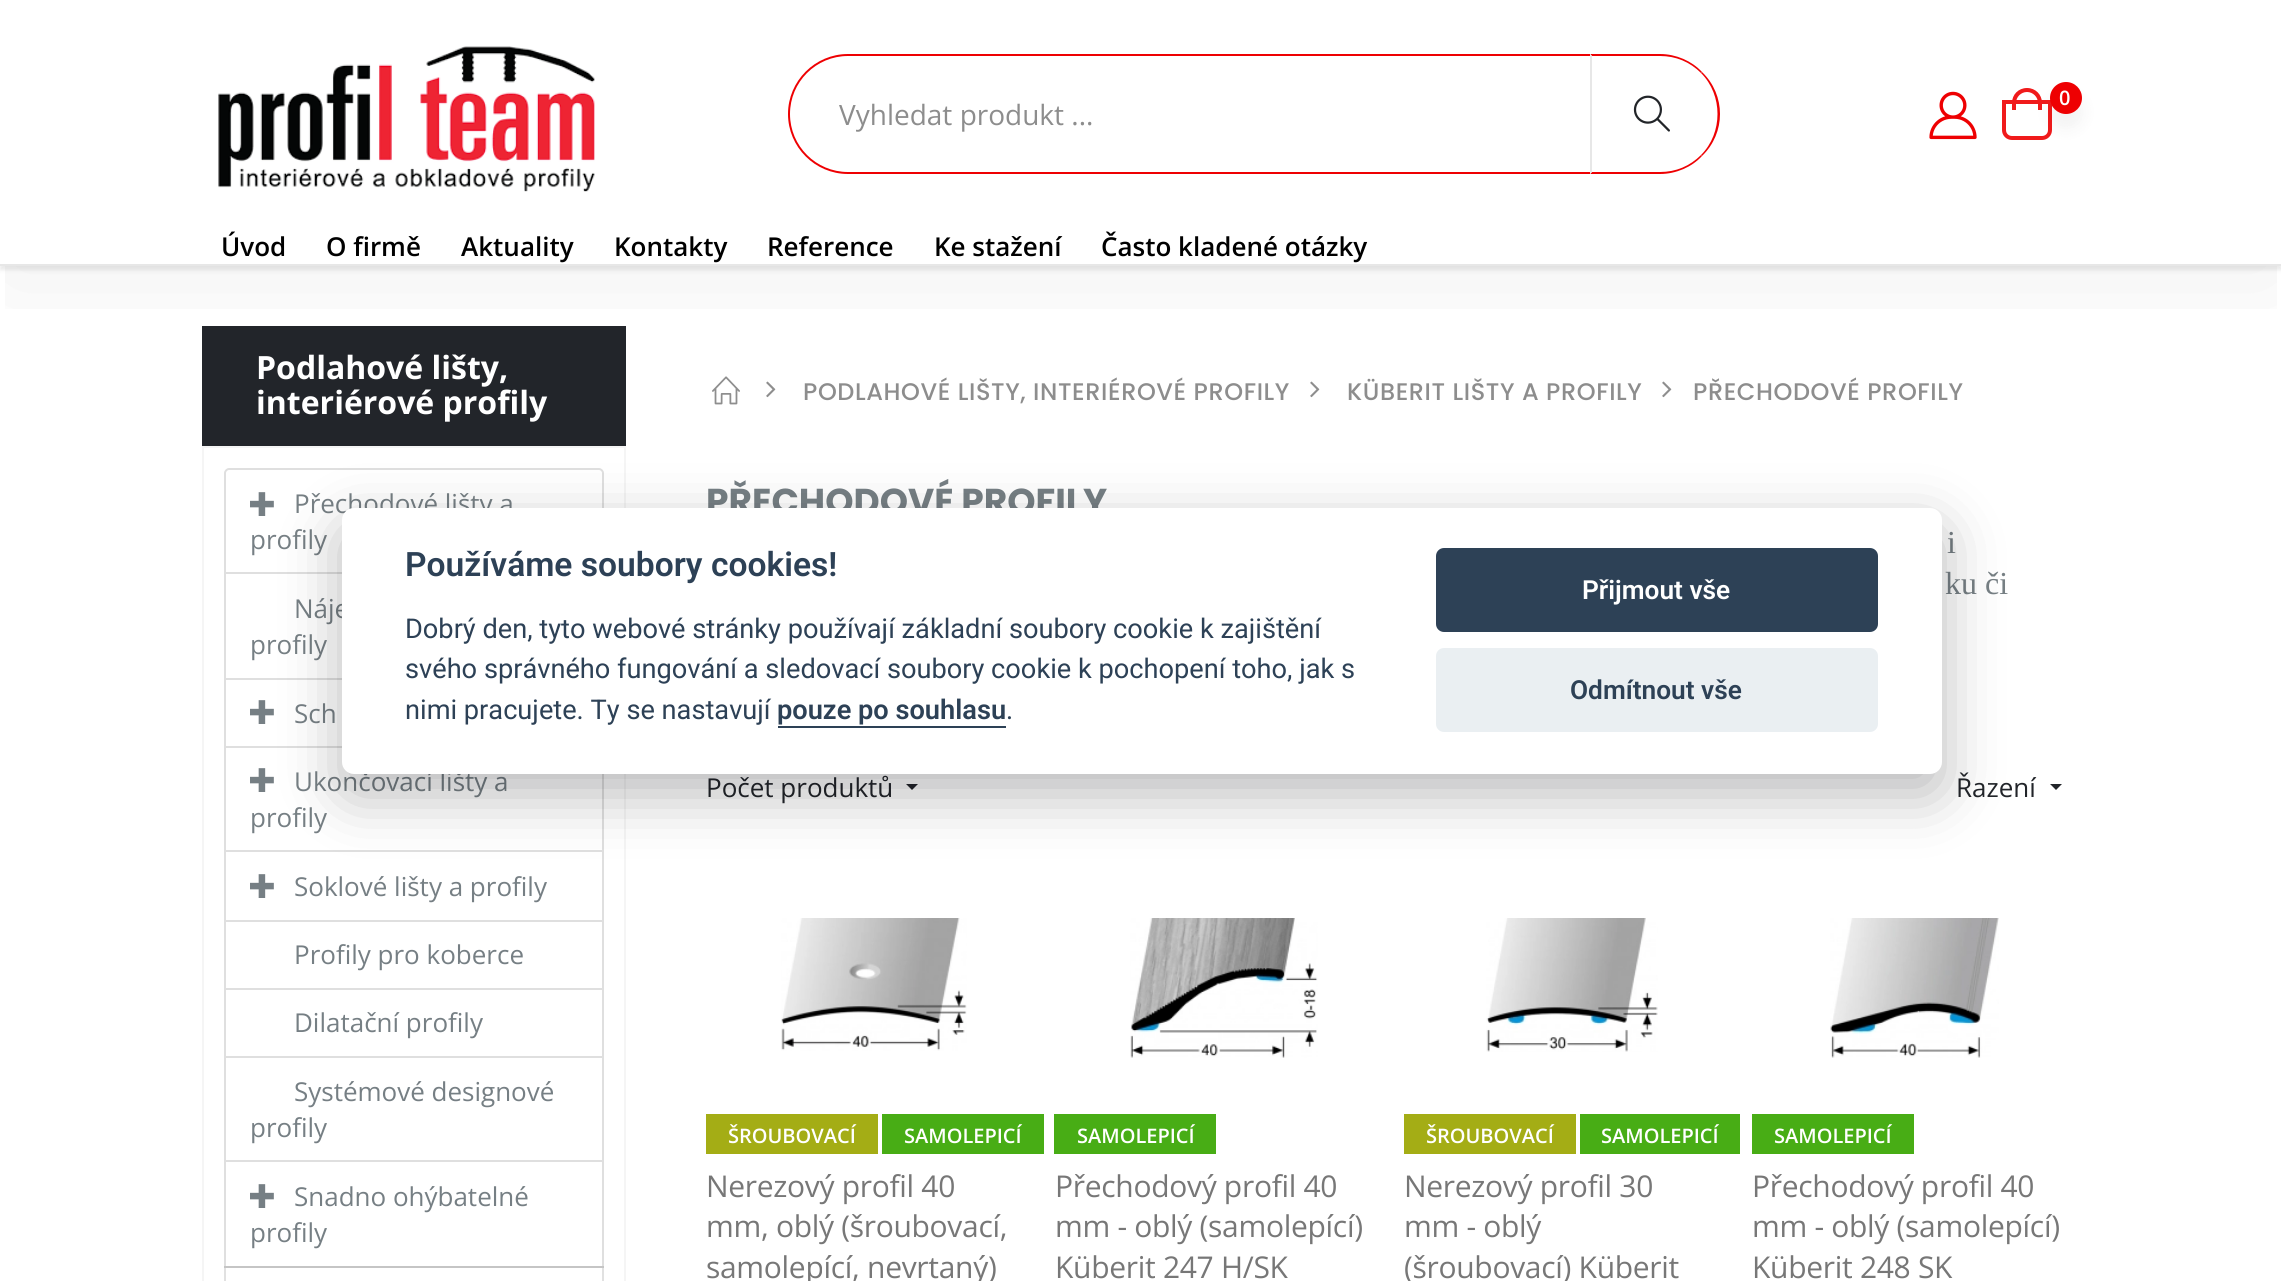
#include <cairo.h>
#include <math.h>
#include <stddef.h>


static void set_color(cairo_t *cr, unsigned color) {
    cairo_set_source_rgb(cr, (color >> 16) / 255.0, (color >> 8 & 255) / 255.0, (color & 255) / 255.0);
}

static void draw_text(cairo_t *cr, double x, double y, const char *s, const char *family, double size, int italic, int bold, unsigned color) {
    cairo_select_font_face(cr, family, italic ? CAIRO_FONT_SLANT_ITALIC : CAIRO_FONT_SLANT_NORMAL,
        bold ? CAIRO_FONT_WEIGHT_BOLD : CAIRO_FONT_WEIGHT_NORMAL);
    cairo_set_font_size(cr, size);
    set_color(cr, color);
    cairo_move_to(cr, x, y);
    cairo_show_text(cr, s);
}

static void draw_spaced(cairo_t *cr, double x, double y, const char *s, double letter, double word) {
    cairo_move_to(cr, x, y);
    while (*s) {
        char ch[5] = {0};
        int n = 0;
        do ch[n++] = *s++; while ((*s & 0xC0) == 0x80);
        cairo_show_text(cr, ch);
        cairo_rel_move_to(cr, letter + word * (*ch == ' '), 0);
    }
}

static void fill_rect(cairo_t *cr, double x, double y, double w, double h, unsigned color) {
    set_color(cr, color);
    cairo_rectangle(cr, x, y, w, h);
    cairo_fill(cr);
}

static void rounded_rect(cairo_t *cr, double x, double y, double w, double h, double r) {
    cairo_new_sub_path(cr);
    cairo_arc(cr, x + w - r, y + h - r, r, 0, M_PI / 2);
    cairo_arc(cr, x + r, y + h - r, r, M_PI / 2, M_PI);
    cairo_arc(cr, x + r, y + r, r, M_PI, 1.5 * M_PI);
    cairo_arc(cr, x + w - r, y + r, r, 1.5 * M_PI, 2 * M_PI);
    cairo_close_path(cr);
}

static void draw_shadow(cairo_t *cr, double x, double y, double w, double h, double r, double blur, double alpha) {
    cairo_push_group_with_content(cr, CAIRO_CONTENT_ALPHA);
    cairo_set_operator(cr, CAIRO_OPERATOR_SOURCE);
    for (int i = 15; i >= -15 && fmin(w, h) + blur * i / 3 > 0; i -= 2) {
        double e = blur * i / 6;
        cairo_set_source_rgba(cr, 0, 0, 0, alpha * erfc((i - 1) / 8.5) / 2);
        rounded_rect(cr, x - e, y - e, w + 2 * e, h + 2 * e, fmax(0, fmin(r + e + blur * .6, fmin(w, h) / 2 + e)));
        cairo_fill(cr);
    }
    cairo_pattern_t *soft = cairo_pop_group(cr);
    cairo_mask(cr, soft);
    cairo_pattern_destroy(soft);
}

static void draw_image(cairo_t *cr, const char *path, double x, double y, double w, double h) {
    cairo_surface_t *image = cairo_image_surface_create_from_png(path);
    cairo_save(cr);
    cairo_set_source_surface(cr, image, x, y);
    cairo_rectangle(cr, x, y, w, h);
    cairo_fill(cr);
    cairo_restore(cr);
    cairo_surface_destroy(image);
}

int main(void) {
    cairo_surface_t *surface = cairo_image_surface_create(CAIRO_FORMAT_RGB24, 2281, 1281);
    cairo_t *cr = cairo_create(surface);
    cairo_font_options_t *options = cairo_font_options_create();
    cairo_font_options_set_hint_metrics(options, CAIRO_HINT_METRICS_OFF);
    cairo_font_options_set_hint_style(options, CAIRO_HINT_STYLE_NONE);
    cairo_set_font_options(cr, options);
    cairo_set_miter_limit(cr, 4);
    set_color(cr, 0xFFFFFF);
    cairo_paint(cr);
    cairo_save(cr);
    cairo_rectangle(cr, 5, 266, 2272, 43);
    cairo_clip(cr);
    set_color(cr, 0x000000);
    draw_shadow(cr, 0, 56, 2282, 228, 0, 57, 0.06);
    cairo_restore(cr);
    draw_image(cr, "assets/img1.png", 218, 46, 377, 146);
    draw_image(cr, "assets/img2.png", 1929, 91, 48, 49);
    cairo_new_path(cr);
    cairo_move_to(cr, 2004, 102);
    cairo_line_to(cr, 2050, 102);
    cairo_line_to(cr, 2050, 130);
    cairo_curve_to(cr, 2050, 134.5, 2046.5, 138, 2042, 138);
    cairo_line_to(cr, 2012, 138);
    cairo_curve_to(cr, 2007.5, 138, 2004, 134.5, 2004, 130);
    cairo_close_path(cr);
    set_color(cr, 0xF01A1B);
    cairo_set_line_width(cr, 4);
    cairo_stroke(cr);
    cairo_set_fill_rule(cr, CAIRO_FILL_RULE_EVEN_ODD);
    cairo_new_path(cr);
    cairo_move_to(cr, 2027, 88);
    cairo_curve_to(cr, 2035.5, 88, 2042, 94.5, 2042, 103);
    cairo_line_to(cr, 2042, 110);
    cairo_line_to(cr, 2012, 110);
    cairo_line_to(cr, 2012, 103);
    cairo_curve_to(cr, 2012, 94.5, 2018.5, 88, 2027, 88);
    cairo_close_path(cr);
    cairo_move_to(cr, 2027, 92);
    cairo_curve_to(cr, 2033, 92, 2038, 97, 2038, 103);
    cairo_line_to(cr, 2038, 110);
    cairo_line_to(cr, 2016, 110);
    cairo_line_to(cr, 2016, 103);
    cairo_curve_to(cr, 2016, 97, 2021, 92, 2027, 92);
    cairo_close_path(cr);
    cairo_fill(cr);
    set_color(cr, 0x000000);
    draw_shadow(cr, 2050, 96, 32, 32, 16, 8, 0.05);
    set_color(cr, 0xEE0002);
    cairo_arc(cr, 2066, 98, 16, 0, 2 * M_PI);
    cairo_fill(cr);
    draw_text(cr, 2059, 105, "0", "Open Sans SemiBold", 20, 0, 0, 0xFFFFFF);
    set_color(cr, 0xEE0002);
    cairo_new_path(cr);
    cairo_move_to(cr, 848, 54);
    cairo_line_to(cr, 1590, 54);
    cairo_line_to(cr, 1590, 174);
    cairo_line_to(cr, 848, 174);
    cairo_curve_to(cr, 815, 174, 788, 147, 788, 114);
    cairo_curve_to(cr, 788, 81, 815, 54, 848, 54);
    cairo_close_path(cr);
    cairo_move_to(cr, 848, 56);
    cairo_line_to(cr, 1590, 56);
    cairo_line_to(cr, 1590, 172);
    cairo_line_to(cr, 848, 172);
    cairo_curve_to(cr, 816, 172, 790, 146, 790, 114);
    cairo_curve_to(cr, 790, 82, 816, 56, 848, 56);
    cairo_close_path(cr);
    cairo_fill(cr);
    draw_text(cr, 839, 125, "Vyhledat produkt ...", "Open Sans", 28, 0, 0, 0x8D8D8D);
    set_color(cr, 0xEE0002);
    cairo_set_fill_rule(cr, CAIRO_FILL_RULE_WINDING);
    cairo_new_path(cr);
    cairo_move_to(cr, 1590, 54);
    cairo_line_to(cr, 1592, 56);
    cairo_line_to(cr, 1660, 56);
    cairo_curve_to(cr, 1676, 56, 1690, 62, 1701, 73);
    cairo_line_to(cr, 1702, 72);
    cairo_curve_to(cr, 1692, 61, 1676, 54, 1660, 54);
    cairo_close_path(cr);
    cairo_fill(cr);
    cairo_new_path(cr);
    cairo_move_to(cr, 1702, 72);
    cairo_curve_to(cr, 1726, 95, 1726, 133, 1702, 156);
    cairo_line_to(cr, 1701, 155);
    cairo_curve_to(cr, 1723, 133, 1723, 95, 1701, 73);
    cairo_close_path(cr);
    cairo_fill(cr);
    cairo_new_path(cr);
    cairo_move_to(cr, 1660, 174);
    cairo_curve_to(cr, 1676, 174, 1692, 167, 1702, 156);
    cairo_line_to(cr, 1701, 155);
    cairo_curve_to(cr, 1690, 166, 1676, 172, 1660, 172);
    cairo_line_to(cr, 1592, 172);
    cairo_line_to(cr, 1590, 174);
    cairo_close_path(cr);
    cairo_fill(cr);
    set_color(cr, 0xE7E7E7);
    cairo_new_path(cr);
    cairo_move_to(cr, 1590, 54);
    cairo_line_to(cr, 1590, 174);
    cairo_line_to(cr, 1592, 172);
    cairo_line_to(cr, 1592, 56);
    cairo_close_path(cr);
    cairo_fill(cr);
    draw_image(cr, "assets/img3.png", 1633, 95, 37, 37);
    set_color(cr, 0x000000);
    draw_shadow(cr, 0, 232, 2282, 38, 0, 2, 0.09);
    fill_rect(cr, 0, 228, 2281, 36, 0xFFFFFF);
    fill_rect(cr, 0, 264, 2281, 2, 0xE7E7E7);
    draw_text(cr, 221, 256, "Úvod", "Open Sans SemiBold", 26, 0, 0, 0x000000);
    draw_text(cr, 326, 256, "O firmě", "Open Sans SemiBold", 26, 0, 0, 0x000000);
    draw_text(cr, 461, 256, "Aktuality", "Open Sans SemiBold", 26, 0, 0, 0x000000);
    draw_text(cr, 614, 256, "Kontakty", "Open Sans SemiBold", 26, 0, 0, 0x000000);
    draw_text(cr, 767, 256, "Reference", "Open Sans SemiBold", 26, 0, 0, 0x000000);
    draw_text(cr, 934, 256, "Ke stažení", "Open Sans SemiBold", 26, 0, 0, 0x000000);
    draw_text(cr, 1101, 256, "Často kladené otázky", "Open Sans SemiBold", 26, 0, 0, 0x000000);
    fill_rect(cr, 202, 326, 424, 120, 0x22252A);
    draw_text(cr, 256, 379, "Podlahové lišty,", "Open Sans", 32, 0, 1, 0xFFFFFF);
    draw_text(cr, 256, 414, "interiérové profily", "Open Sans", 32, 0, 1, 0xFFFFFF);
    cairo_rectangle(cr, 203, 447, 422, 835);
    set_color(cr, 0xF5F5F5);
    cairo_set_line_width(cr, 2);
    cairo_stroke(cr);
    cairo_new_path(cr);
    cairo_move_to(cr, 229, 469);
    cairo_line_to(cr, 599, 469);
    cairo_curve_to(cr, 601, 469, 603, 471, 603, 473);
    cairo_line_to(cr, 603, 573);
    cairo_line_to(cr, 225, 573);
    cairo_line_to(cr, 225, 473);
    cairo_curve_to(cr, 225, 471, 227, 469, 229, 469);
    cairo_close_path(cr);
    set_color(cr, 0xDFDFDF);
    cairo_stroke(cr);
    draw_image(cr, "assets/img4.png", 250, 492, 24, 24);
    draw_text(cr, 294, 513, "Přechodové lišty a", "Open Sans", 26, 0, 0, 0x767F84);
    draw_text(cr, 250, 549, "profily", "Open Sans", 26, 0, 0, 0x767F84);
    cairo_rectangle(cr, 225, 573, 378, 106);
    set_color(cr, 0xDFDFDF);
    cairo_stroke(cr);
    draw_text(cr, 294, 618, "Náje", "Open Sans", 26, 0, 0, 0x767F84);
    draw_text(cr, 250, 654, "profily", "Open Sans", 26, 0, 0, 0x767F84);
    cairo_rectangle(cr, 225, 679, 378, 68);
    set_color(cr, 0xDFDFDF);
    cairo_stroke(cr);
    draw_image(cr, "assets/img4.png", 250, 700, 24, 24);
    draw_text(cr, 294, 723, "Sch", "Open Sans", 26, 0, 0, 0x767F84);
    cairo_rectangle(cr, 225, 747, 378, 104);
    set_color(cr, 0xDFDFDF);
    cairo_stroke(cr);
    draw_image(cr, "assets/img4.png", 250, 768, 24, 24);
    draw_text(cr, 294, 791, "Ukončovací lišty a", "Open Sans", 26, 0, 0, 0x767F84);
    draw_text(cr, 250, 827, "profily", "Open Sans", 26, 0, 0, 0x767F84);
    cairo_rectangle(cr, 225, 851, 378, 70);
    set_color(cr, 0xDFDFDF);
    cairo_stroke(cr);
    draw_image(cr, "assets/img4.png", 250, 874, 24, 24);
    draw_text(cr, 294, 896, "Soklové lišty a profily", "Open Sans", 26, 0, 0, 0x767F84);
    cairo_rectangle(cr, 225, 921, 378, 68);
    set_color(cr, 0xDFDFDF);
    cairo_stroke(cr);
    draw_text(cr, 294, 964, "Profily pro koberce", "Open Sans", 26, 0, 0, 0x767F84);
    cairo_rectangle(cr, 225, 989, 378, 68);
    set_color(cr, 0xDFDFDF);
    cairo_stroke(cr);
    draw_text(cr, 294, 1032, "Dilatační profily", "Open Sans", 26, 0, 0, 0x767F84);
    cairo_rectangle(cr, 225, 1057, 378, 104);
    set_color(cr, 0xDFDFDF);
    cairo_stroke(cr);
    draw_text(cr, 294, 1101, "Systémové designové", "Open Sans", 26, 0, 0, 0x767F84);
    draw_text(cr, 250, 1137, "profily", "Open Sans", 26, 0, 0, 0x767F84);
    cairo_rectangle(cr, 225, 1161, 378, 106);
    set_color(cr, 0xDFDFDF);
    cairo_stroke(cr);
    draw_image(cr, "assets/img4.png", 250, 1184, 24, 24);
    draw_text(cr, 294, 1206, "Snadno ohýbatelné", "Open Sans", 26, 0, 0, 0x767F84);
    draw_text(cr, 250, 1242, "profily", "Open Sans", 26, 0, 0, 0x767F84);
    cairo_rectangle(cr, 225, 1267, 378, 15);
    cairo_set_source_rgba(cr, 0, 0, 0, 0.12);
    cairo_stroke(cr);
    draw_image(cr, "assets/img5.png", 712, 376, 28, 29);
    draw_image(cr, "assets/img6.png", 766, 381, 10, 17);
    cairo_select_font_face(cr, "Poppins Medium", CAIRO_FONT_SLANT_NORMAL, CAIRO_FONT_WEIGHT_NORMAL);
    cairo_set_font_size(cr, 24);
    set_color(cr, 0x8D8D8D);
    draw_spaced(cr, 803, 400, "PODLAHOVÉ LIŠTY, INTERIÉROVÉ PROFILY", 0.6, 0);
    draw_image(cr, "assets/img6.png", 1310, 381, 10, 17);
    draw_spaced(cr, 1347, 400, "KÜBERIT LIŠTY A PROFILY", 0.6, 0);
    draw_image(cr, "assets/img6.png", 1662, 381, 10, 17);
    draw_spaced(cr, 1693, 400, "PŘECHODOVÉ PROFILY", 0.6, 0);
    draw_text(cr, 706, 514, "PŘECHODOVÉ PROFILY", "Poppins", 36, 0, 1, 0x767F84);
    draw_text(cr, 1947, 553, "i", "Liberation Serif", 32, 0, 0, 0x767F84);
    draw_text(cr, 1945, 594, "ku či", "Liberation Serif", 32, 0, 0, 0x767F84);
    draw_text(cr, 706, 797, "Počet produktů", "Open Sans", 26, 0, 0, 0x22252A);
    cairo_new_path(cr);
    cairo_move_to(cr, 906, 784);
    cairo_line_to(cr, 918, 784);
    cairo_line_to(cr, 912, 790);
    cairo_close_path(cr);
    cairo_fill(cr);
    draw_text(cr, 1956, 797, "Řazení", "Open Sans", 26, 0, 0, 0x22252A);
    cairo_new_path(cr);
    cairo_move_to(cr, 2050, 784);
    cairo_line_to(cr, 2062, 784);
    cairo_line_to(cr, 2056, 790);
    cairo_close_path(cr);
    cairo_fill(cr);
    draw_image(cr, "assets/img7.png", 781, 918, 186, 133);
    fill_rect(cr, 706, 1114, 172, 40, 0xA4AD15);
    draw_text(cr, 728, 1143, "ŠROUBOVACÍ", "Open Sans SemiBold", 20, 0, 0, 0xFFFFFF);
    fill_rect(cr, 882, 1114, 162, 40, 0x48AD15);
    draw_text(cr, 904, 1143, "SAMOLEPICÍ", "Open Sans SemiBold", 20, 0, 0, 0xFFFFFF);
    cairo_select_font_face(cr, "Open Sans", CAIRO_FONT_SLANT_NORMAL, CAIRO_FONT_WEIGHT_NORMAL);
    cairo_set_font_size(cr, 30);
    set_color(cr, 0x777777);
    draw_spaced(cr, 706, 1197, "Nerezový profil 40", -0.3, 0);
    draw_spaced(cr, 706, 1237, "mm, oblý (šroubovací,", -0.3, 0);
    draw_spaced(cr, 706, 1278, "samolepící, nevrtaný)", -0.3, 0);
    draw_image(cr, "assets/img8.png", 1130, 918, 188, 140);
    fill_rect(cr, 1054, 1114, 162, 40, 0x48AD15);
    draw_text(cr, 1077, 1143, "SAMOLEPICÍ", "Open Sans SemiBold", 20, 0, 0, 0xFFFFFF);
    cairo_select_font_face(cr, "Open Sans", CAIRO_FONT_SLANT_NORMAL, CAIRO_FONT_WEIGHT_NORMAL);
    cairo_set_font_size(cr, 30);
    set_color(cr, 0x777777);
    draw_spaced(cr, 1055, 1197, "Přechodový profil 40", -0.3, 0);
    draw_spaced(cr, 1055, 1237, "mm - oblý (samolepící)", -0.3, 0);
    draw_spaced(cr, 1055, 1278, "Küberit 247 H/SK", -0.3, 0);
    draw_image(cr, "assets/img9.png", 1486, 918, 172, 134);
    fill_rect(cr, 1404, 1114, 172, 40, 0xA4AD15);
    draw_text(cr, 1426, 1143, "ŠROUBOVACÍ", "Open Sans SemiBold", 20, 0, 0, 0xFFFFFF);
    fill_rect(cr, 1580, 1114, 160, 40, 0x48AD15);
    draw_text(cr, 1601, 1143, "SAMOLEPICÍ", "Open Sans SemiBold", 20, 0, 0, 0xFFFFFF);
    cairo_select_font_face(cr, "Open Sans", CAIRO_FONT_SLANT_NORMAL, CAIRO_FONT_WEIGHT_NORMAL);
    cairo_set_font_size(cr, 30);
    set_color(cr, 0x777777);
    draw_spaced(cr, 1404, 1197, "Nerezový profil 30", -0.3, 0);
    draw_spaced(cr, 1404, 1237, "mm - oblý", -0.3, 0);
    draw_spaced(cr, 1404, 1278, "(šroubovací) Küberit", -0.3, 0);
    draw_image(cr, "assets/img10.png", 1830, 918, 169, 140);
    fill_rect(cr, 1752, 1114, 162, 40, 0x48AD15);
    draw_text(cr, 1774, 1143, "SAMOLEPICÍ", "Open Sans SemiBold", 20, 0, 0, 0xFFFFFF);
    cairo_select_font_face(cr, "Open Sans", CAIRO_FONT_SLANT_NORMAL, CAIRO_FONT_WEIGHT_NORMAL);
    cairo_set_font_size(cr, 30);
    set_color(cr, 0x777777);
    draw_spaced(cr, 1752, 1197, "Přechodový profil 40", -0.3, 0);
    draw_spaced(cr, 1752, 1237, "mm - oblý (samolepící)", -0.3, 0);
    draw_spaced(cr, 1752, 1278, "Küberit 248 SK", -0.3, 0);
    set_color(cr, 0x020203);
    draw_shadow(cr, 342, 528, 1600, 266, 12, 30, 0.28);
    set_color(cr, 0xFFFFFF);
    rounded_rect(cr, 342, 508, 1600, 266, 12);
    cairo_fill(cr);
    draw_text(cr, 405, 576, "Používáme soubory cookies!", "Roboto SemiBold", 33.6, 0, 0, 0x2D4156);
    draw_text(cr, 405, 638, "Dobrý den, tyto webové stránky používají základní soubory cookie k zajištění", "Roboto", 27.2, 0, 0, 0x2D4156);
    draw_text(cr, 405, 678, "svého správného fungování a sledovací soubory cookie k pochopení toho, jak s", "Roboto", 27.2, 0, 0, 0x2D4156);
    draw_text(cr, 405, 719, "nimi pracujete. Ty se nastavují", "Roboto", 27.2, 0, 0, 0x2D4156);
    draw_text(cr, 777, 719, "pouze po souhlasu", "Roboto SemiBold", 27.2, 0, 0, 0x2D4156);
    fill_rect(cr, 778, 726, 228, 2, 0x2D4156);
    draw_text(cr, 1006, 719, ".", "Roboto", 27.2, 0, 0, 0x2D4156);
    rounded_rect(cr, 1436, 548, 442, 84, 8);
    cairo_fill(cr);
    draw_text(cr, 1582, 599, "Přijmout vše", "Roboto SemiBold", 26.25, 0, 0, 0xFFFFFF);
    set_color(cr, 0xEAEFF2);
    rounded_rect(cr, 1436, 648, 442, 84, 8);
    cairo_fill(cr);
    draw_text(cr, 1570, 699, "Odmítnout vše", "Roboto SemiBold", 26.25, 0, 0, 0x2D4156);
    cairo_surface_write_to_png(surface, "output.png");
    cairo_font_options_destroy(options);
    cairo_destroy(cr);
    cairo_surface_destroy(surface);
    return 0;
}
